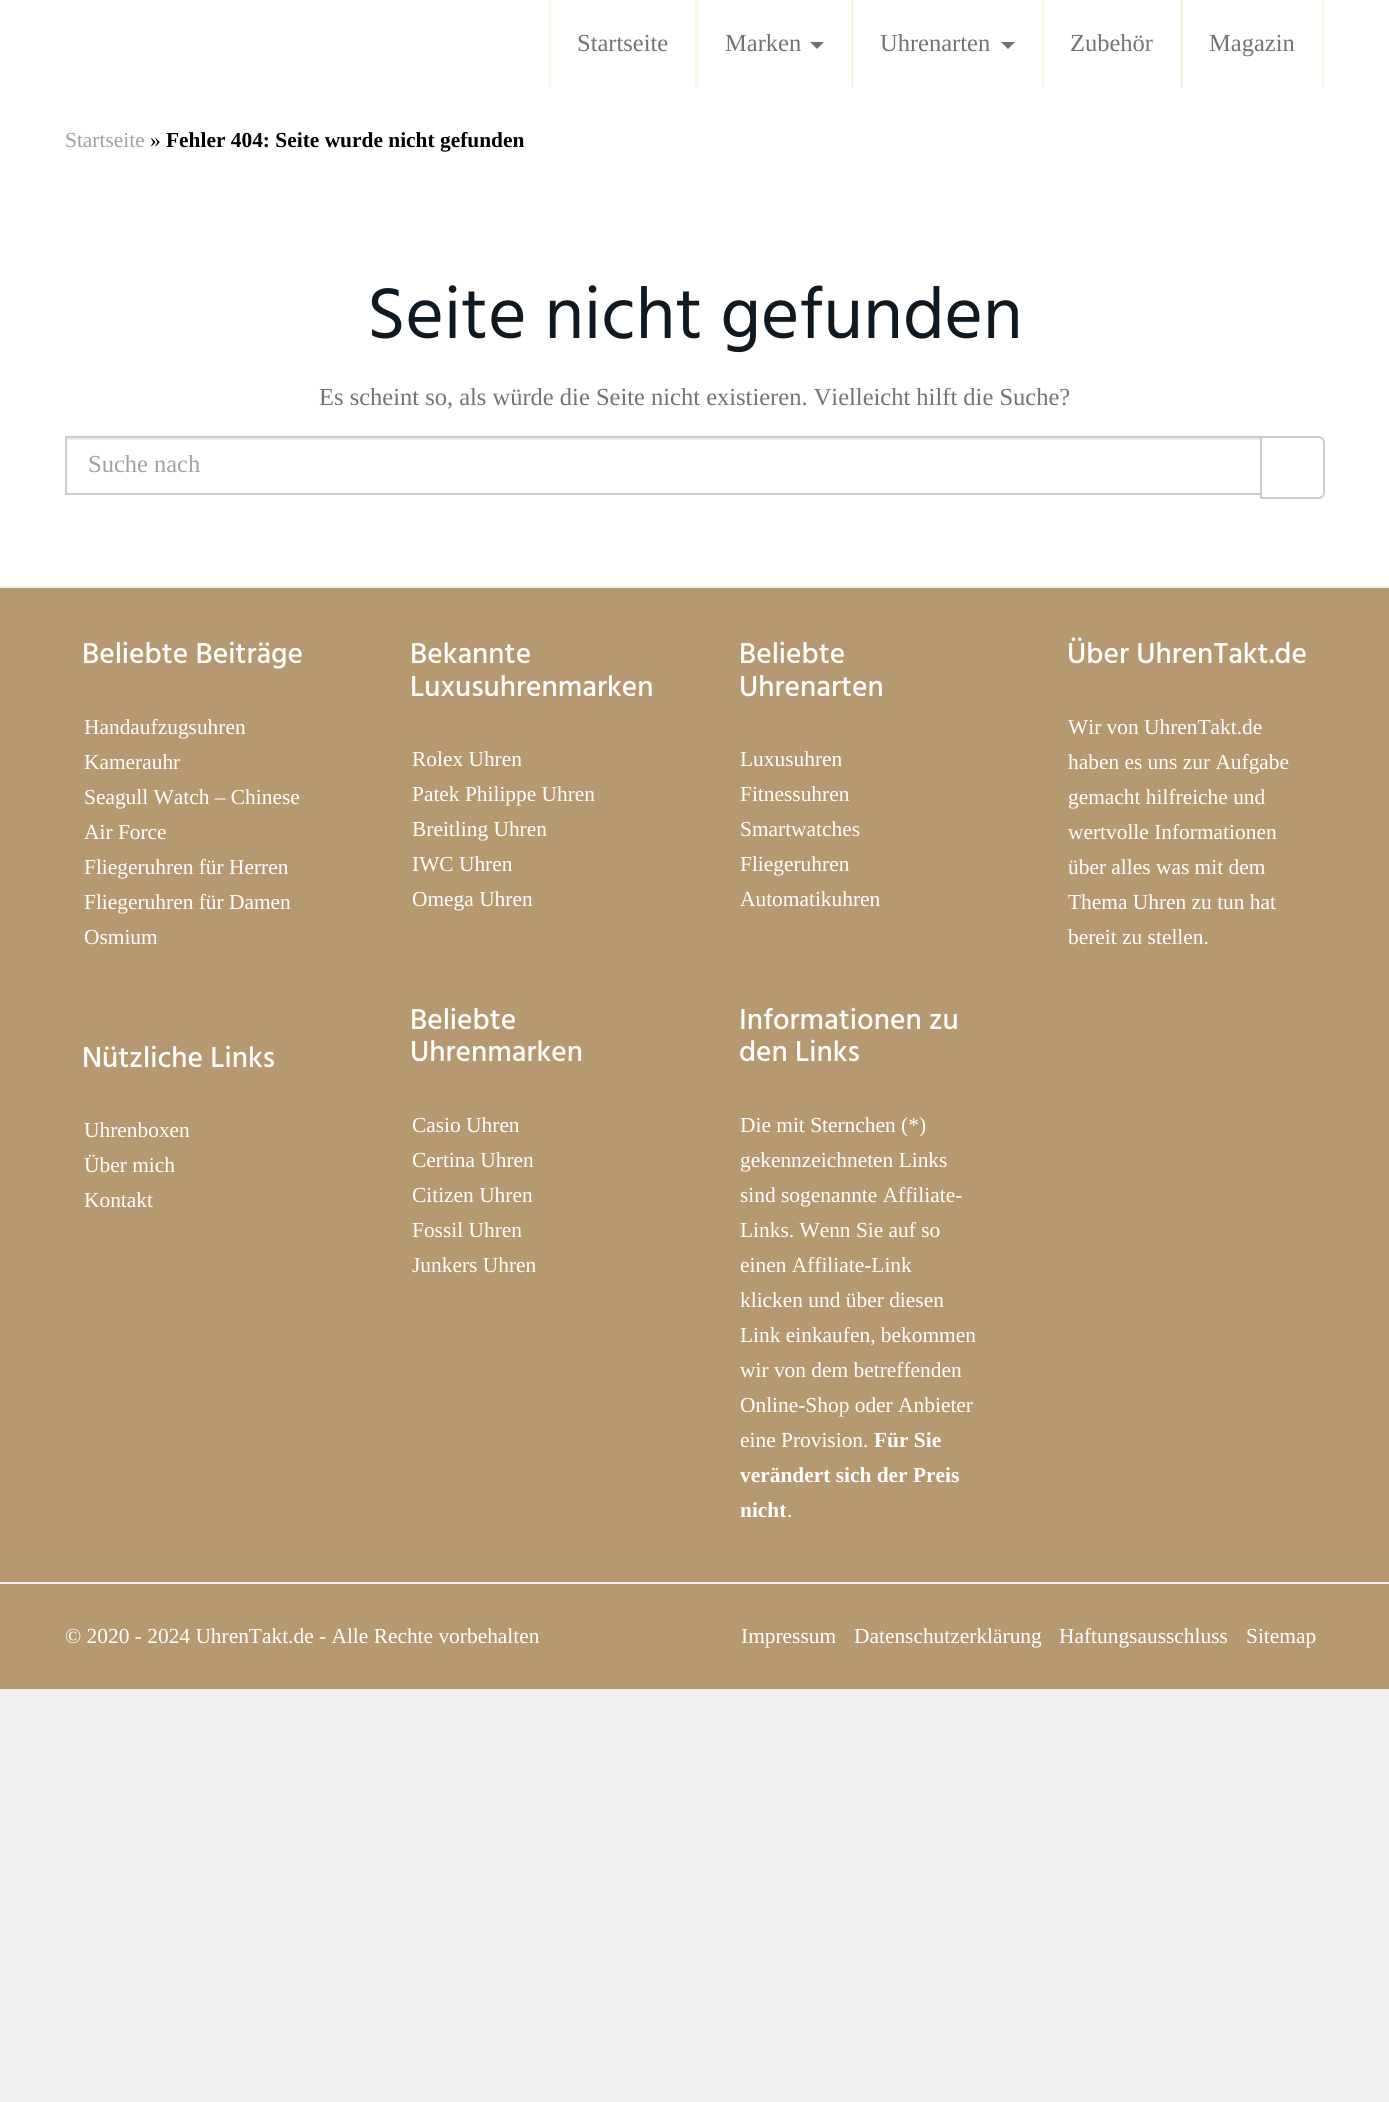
#include <cairo.h>
#include <math.h>
#include <stddef.h>


static void set_color(cairo_t *cr, unsigned color) {
    cairo_set_source_rgb(cr, (color >> 16) / 255.0, (color >> 8 & 255) / 255.0, (color & 255) / 255.0);
}

static void draw_text(cairo_t *cr, double x, double y, const char *s, const char *family, double size, int italic, int bold, unsigned color) {
    cairo_select_font_face(cr, family, italic ? CAIRO_FONT_SLANT_ITALIC : CAIRO_FONT_SLANT_NORMAL,
        bold ? CAIRO_FONT_WEIGHT_BOLD : CAIRO_FONT_WEIGHT_NORMAL);
    cairo_set_font_size(cr, size);
    set_color(cr, color);
    cairo_move_to(cr, x, y);
    cairo_show_text(cr, s);
}

static void fill_rect(cairo_t *cr, double x, double y, double w, double h, unsigned color) {
    set_color(cr, color);
    cairo_rectangle(cr, x, y, w, h);
    cairo_fill(cr);
}

int main(void) {
    cairo_surface_t *surface = cairo_image_surface_create(CAIRO_FORMAT_RGB24, 1389, 2102);
    cairo_t *cr = cairo_create(surface);
    cairo_font_options_t *options = cairo_font_options_create();
    cairo_font_options_set_hint_metrics(options, CAIRO_HINT_METRICS_OFF);
    cairo_font_options_set_hint_style(options, CAIRO_HINT_STYLE_NONE);
    cairo_set_font_options(cr, options);
    cairo_set_miter_limit(cr, 4);
    set_color(cr, 0xF0F0F0);
    cairo_paint(cr);
    fill_rect(cr, 0, 0, 1389, 586, 0xFFFFFF);
    fill_rect(cr, 1182, 0, 1, 88, 0xF2FBEC);
    fill_rect(cr, 853, 0, 1, 88, 0xF2FBEC);
    fill_rect(cr, 1321, 0, 4, 88, 0xF2FBEC);
    fill_rect(cr, 548, 0, 4, 88, 0xF2FBEC);
    fill_rect(cr, 695, 0, 4, 88, 0xF2FBEC);
    draw_text(cr, 577, 51, "Startseite", "Liberation Serif", 24.5, 0, 0, 0x6F7479);
    fill_rect(cr, 851, 0, 1, 88, 0xF2FBEC);
    fill_rect(cr, 852, 0, 1, 88, 0xE7F7DB);
    draw_text(cr, 725, 51, "Marken", "Liberation Serif", 24.5, 0, 0, 0x6F7479);
    cairo_new_path(cr);
    cairo_move_to(cr, 810, 42);
    cairo_line_to(cr, 824, 42);
    cairo_line_to(cr, 817, 49);
    cairo_close_path(cr);
    cairo_fill(cr);
    fill_rect(cr, 1041, 0, 4, 88, 0xF2FBEC);
    draw_text(cr, 880, 51, "Uhrenarten", "Liberation Serif", 24.5, 0, 0, 0x6F7479);
    cairo_new_path(cr);
    cairo_move_to(cr, 1001, 42);
    cairo_line_to(cr, 1015, 42);
    cairo_line_to(cr, 1008, 49);
    cairo_close_path(cr);
    cairo_fill(cr);
    fill_rect(cr, 1180, 0, 1, 88, 0xF2FBEC);
    fill_rect(cr, 1181, 0, 1, 88, 0xE7F7DB);
    draw_text(cr, 1070, 51, "Zubehör", "Liberation Serif", 24.5, 0, 0, 0x6F7479);
    draw_text(cr, 1209, 51, "Magazin", "Liberation Serif", 24.5, 0, 0, 0x6F7479);
    draw_text(cr, 65, 147, "Startseite", "Liberation Serif", 21.4, 0, 0, 0x9FA2A5);
    draw_text(cr, 150, 147, "»", "Liberation Serif", 21.4, 0, 0, 0x000000);
    draw_text(cr, 166, 147, "Fehler 404: Seite wurde nicht gefunden", "Liberation Serif", 21.4, 0, 1, 0x000000);
    draw_text(cr, 367, 338, "Seite nicht gefunden", "Hind", 73.5, 0, 0, 0x101820);
    draw_text(cr, 319, 405, "Es scheint so, als würde die Seite nicht existieren. Vielleicht hilft die Suche?", "Liberation Serif", 24.5, 0, 0, 0x6F7479);
    fill_rect(cr, 67, 438, 1193, 2, 0xECECEC);
    cairo_rectangle(cr, 66, 437, 1195, 57);
    set_color(cr, 0xCCCCCC);
    cairo_stroke(cr);
    draw_text(cr, 88, 472, "Suche nach", "Liberation Serif", 24.5, 0, 0, 0x9FA2A5);
    set_color(cr, 0xFFFFFF);
    cairo_new_path(cr);
    cairo_move_to(cr, 1261, 437);
    cairo_line_to(cr, 1318, 437);
    cairo_curve_to(cr, 1321.5, 437, 1324, 439.5, 1324, 443);
    cairo_line_to(cr, 1324, 492);
    cairo_curve_to(cr, 1324, 495.5, 1321.5, 498, 1318, 498);
    cairo_line_to(cr, 1261, 498);
    cairo_close_path(cr);
    cairo_fill_preserve(cr);
    set_color(cr, 0xCCCCCC);
    cairo_stroke(cr);
    fill_rect(cr, 0, 588, 1389, 994, 0xB79971);
    draw_text(cr, 82, 663, "Beliebte Beiträge", "Hind Medium", 29.5, 0, 0, 0xFFFFFF);
    draw_text(cr, 84, 734, "Handaufzugsuhren", "Liberation Serif", 21.4, 0, 0, 0xFFFFFF);
    draw_text(cr, 84, 769, "Kamerauhr", "Liberation Serif", 21.4, 0, 0, 0xFFFFFF);
    draw_text(cr, 84, 804, "Seagull Watch – Chinese", "Liberation Serif", 21.4, 0, 0, 0xFFFFFF);
    draw_text(cr, 84, 839, "Air Force", "Liberation Serif", 21.4, 0, 0, 0xFFFFFF);
    draw_text(cr, 84, 874, "Fliegeruhren für Herren", "Liberation Serif", 21.4, 0, 0, 0xFFFFFF);
    draw_text(cr, 84, 909, "Fliegeruhren für Damen", "Liberation Serif", 21.4, 0, 0, 0xFFFFFF);
    draw_text(cr, 84, 944, "Osmium", "Liberation Serif", 21.4, 0, 0, 0xFFFFFF);
    draw_text(cr, 82, 1067, "Nützliche Links", "Hind Medium", 29.5, 0, 0, 0xFFFFFF);
    draw_text(cr, 84, 1137, "Uhrenboxen", "Liberation Serif", 21.4, 0, 0, 0xFFFFFF);
    draw_text(cr, 84, 1172, "Über mich", "Liberation Serif", 21.4, 0, 0, 0xFFFFFF);
    draw_text(cr, 84, 1207, "Kontakt", "Liberation Serif", 21.4, 0, 0, 0xFFFFFF);
    draw_text(cr, 410, 663, "Bekannte", "Hind Medium", 29.5, 0, 0, 0xFFFFFF);
    draw_text(cr, 410, 696, "Luxusuhrenmarken", "Hind Medium", 29.5, 0, 0, 0xFFFFFF);
    draw_text(cr, 412, 766, "Rolex Uhren", "Liberation Serif", 21.4, 0, 0, 0xFFFFFF);
    draw_text(cr, 412, 801, "Patek Philippe Uhren", "Liberation Serif", 21.4, 0, 0, 0xFFFFFF);
    draw_text(cr, 412, 836, "Breitling Uhren", "Liberation Serif", 21.4, 0, 0, 0xFFFFFF);
    draw_text(cr, 412, 871, "IWC Uhren", "Liberation Serif", 21.4, 0, 0, 0xFFFFFF);
    draw_text(cr, 412, 906, "Omega Uhren", "Liberation Serif", 21.4, 0, 0, 0xFFFFFF);
    draw_text(cr, 410, 1029, "Beliebte", "Hind Medium", 29.5, 0, 0, 0xFFFFFF);
    draw_text(cr, 410, 1061, "Uhrenmarken", "Hind Medium", 29.5, 0, 0, 0xFFFFFF);
    draw_text(cr, 412, 1132, "Casio Uhren", "Liberation Serif", 21.4, 0, 0, 0xFFFFFF);
    draw_text(cr, 412, 1167, "Certina Uhren", "Liberation Serif", 21.4, 0, 0, 0xFFFFFF);
    draw_text(cr, 412, 1202, "Citizen Uhren", "Liberation Serif", 21.4, 0, 0, 0xFFFFFF);
    draw_text(cr, 412, 1237, "Fossil Uhren", "Liberation Serif", 21.4, 0, 0, 0xFFFFFF);
    draw_text(cr, 412, 1272, "Junkers Uhren", "Liberation Serif", 21.4, 0, 0, 0xFFFFFF);
    draw_text(cr, 739, 663, "Beliebte", "Hind Medium", 29.5, 0, 0, 0xFFFFFF);
    draw_text(cr, 739, 696, "Uhrenarten", "Hind Medium", 29.5, 0, 0, 0xFFFFFF);
    draw_text(cr, 740, 766, "Luxusuhren", "Liberation Serif", 21.4, 0, 0, 0xFFFFFF);
    draw_text(cr, 740, 801, "Fitnessuhren", "Liberation Serif", 21.4, 0, 0, 0xFFFFFF);
    draw_text(cr, 740, 836, "Smartwatches", "Liberation Serif", 21.4, 0, 0, 0xFFFFFF);
    draw_text(cr, 740, 871, "Fliegeruhren", "Liberation Serif", 21.4, 0, 0, 0xFFFFFF);
    draw_text(cr, 740, 906, "Automatikuhren", "Liberation Serif", 21.4, 0, 0, 0xFFFFFF);
    draw_text(cr, 739, 1029, "Informationen zu", "Hind Medium", 29.5, 0, 0, 0xFFFFFF);
    draw_text(cr, 739, 1061, "den Links", "Hind Medium", 29.5, 0, 0, 0xFFFFFF);
    draw_text(cr, 740, 1132, "Die mit Sternchen (*)", "Liberation Serif", 21.4, 0, 0, 0xFFFFFF);
    draw_text(cr, 740, 1167, "gekennzeichneten Links", "Liberation Serif", 21.4, 0, 0, 0xFFFFFF);
    draw_text(cr, 740, 1202, "sind sogenannte Affiliate-", "Liberation Serif", 21.4, 0, 0, 0xFFFFFF);
    draw_text(cr, 740, 1237, "Links. Wenn Sie auf so", "Liberation Serif", 21.4, 0, 0, 0xFFFFFF);
    draw_text(cr, 740, 1272, "einen Affiliate-Link", "Liberation Serif", 21.4, 0, 0, 0xFFFFFF);
    draw_text(cr, 740, 1307, "klicken und über diesen", "Liberation Serif", 21.4, 0, 0, 0xFFFFFF);
    draw_text(cr, 740, 1342, "Link einkaufen, bekommen", "Liberation Serif", 21.4, 0, 0, 0xFFFFFF);
    draw_text(cr, 740, 1377, "wir von dem betreffenden", "Liberation Serif", 21.4, 0, 0, 0xFFFFFF);
    draw_text(cr, 740, 1412, "Online-Shop oder Anbieter", "Liberation Serif", 21.4, 0, 0, 0xFFFFFF);
    draw_text(cr, 740, 1447, "eine Provision.", "Liberation Serif", 21.4, 0, 0, 0xFFFFFF);
    draw_text(cr, 874, 1447, "Für Sie", "Liberation Serif", 21.4, 0, 1, 0xFFFFFF);
    draw_text(cr, 740, 1482, "verändert sich der Preis", "Liberation Serif", 21.4, 0, 1, 0xFFFFFF);
    draw_text(cr, 740, 1517, "nicht", "Liberation Serif", 21.4, 0, 1, 0xFFFFFF);
    draw_text(cr, 787, 1517, ".", "Liberation Serif", 21.4, 0, 0, 0xFFFFFF);
    draw_text(cr, 1067, 663, "Über UhrenTakt.de", "Hind Medium", 29.5, 0, 0, 0xFFFFFF);
    draw_text(cr, 1068, 734, "Wir von UhrenTakt.de", "Liberation Serif", 21.4, 0, 0, 0xFFFFFF);
    draw_text(cr, 1068, 769, "haben es uns zur Aufgabe", "Liberation Serif", 21.4, 0, 0, 0xFFFFFF);
    draw_text(cr, 1068, 804, "gemacht hilfreiche und", "Liberation Serif", 21.4, 0, 0, 0xFFFFFF);
    draw_text(cr, 1068, 839, "wertvolle Informationen", "Liberation Serif", 21.4, 0, 0, 0xFFFFFF);
    draw_text(cr, 1068, 874, "über alles was mit dem", "Liberation Serif", 21.4, 0, 0, 0xFFFFFF);
    draw_text(cr, 1068, 909, "Thema Uhren zu tun hat", "Liberation Serif", 21.4, 0, 0, 0xFFFFFF);
    draw_text(cr, 1068, 944, "bereit zu stellen.", "Liberation Serif", 21.4, 0, 0, 0xFFFFFF);
    fill_rect(cr, 0, 1584, 1389, 105, 0xB79971);
    draw_text(cr, 65, 1643, "© 2020 - 2024 UhrenTakt.de - Alle Rechte vorbehalten", "Liberation Serif", 21.4, 0, 0, 0xFFFFFF);
    draw_text(cr, 741, 1643, "Impressum", "Liberation Serif", 21.4, 0, 0, 0xFFFFFF);
    draw_text(cr, 854, 1643, "Datenschutzerklärung", "Liberation Serif", 21.4, 0, 0, 0xFFFFFF);
    draw_text(cr, 1059, 1643, "Haftungsausschluss", "Liberation Serif", 21.4, 0, 0, 0xFFFFFF);
    draw_text(cr, 1246, 1643, "Sitemap", "Liberation Serif", 21.4, 0, 0, 0xFFFFFF);
    cairo_surface_write_to_png(surface, "output.png");
    cairo_font_options_destroy(options);
    cairo_destroy(cr);
    cairo_surface_destroy(surface);
    return 0;
}
